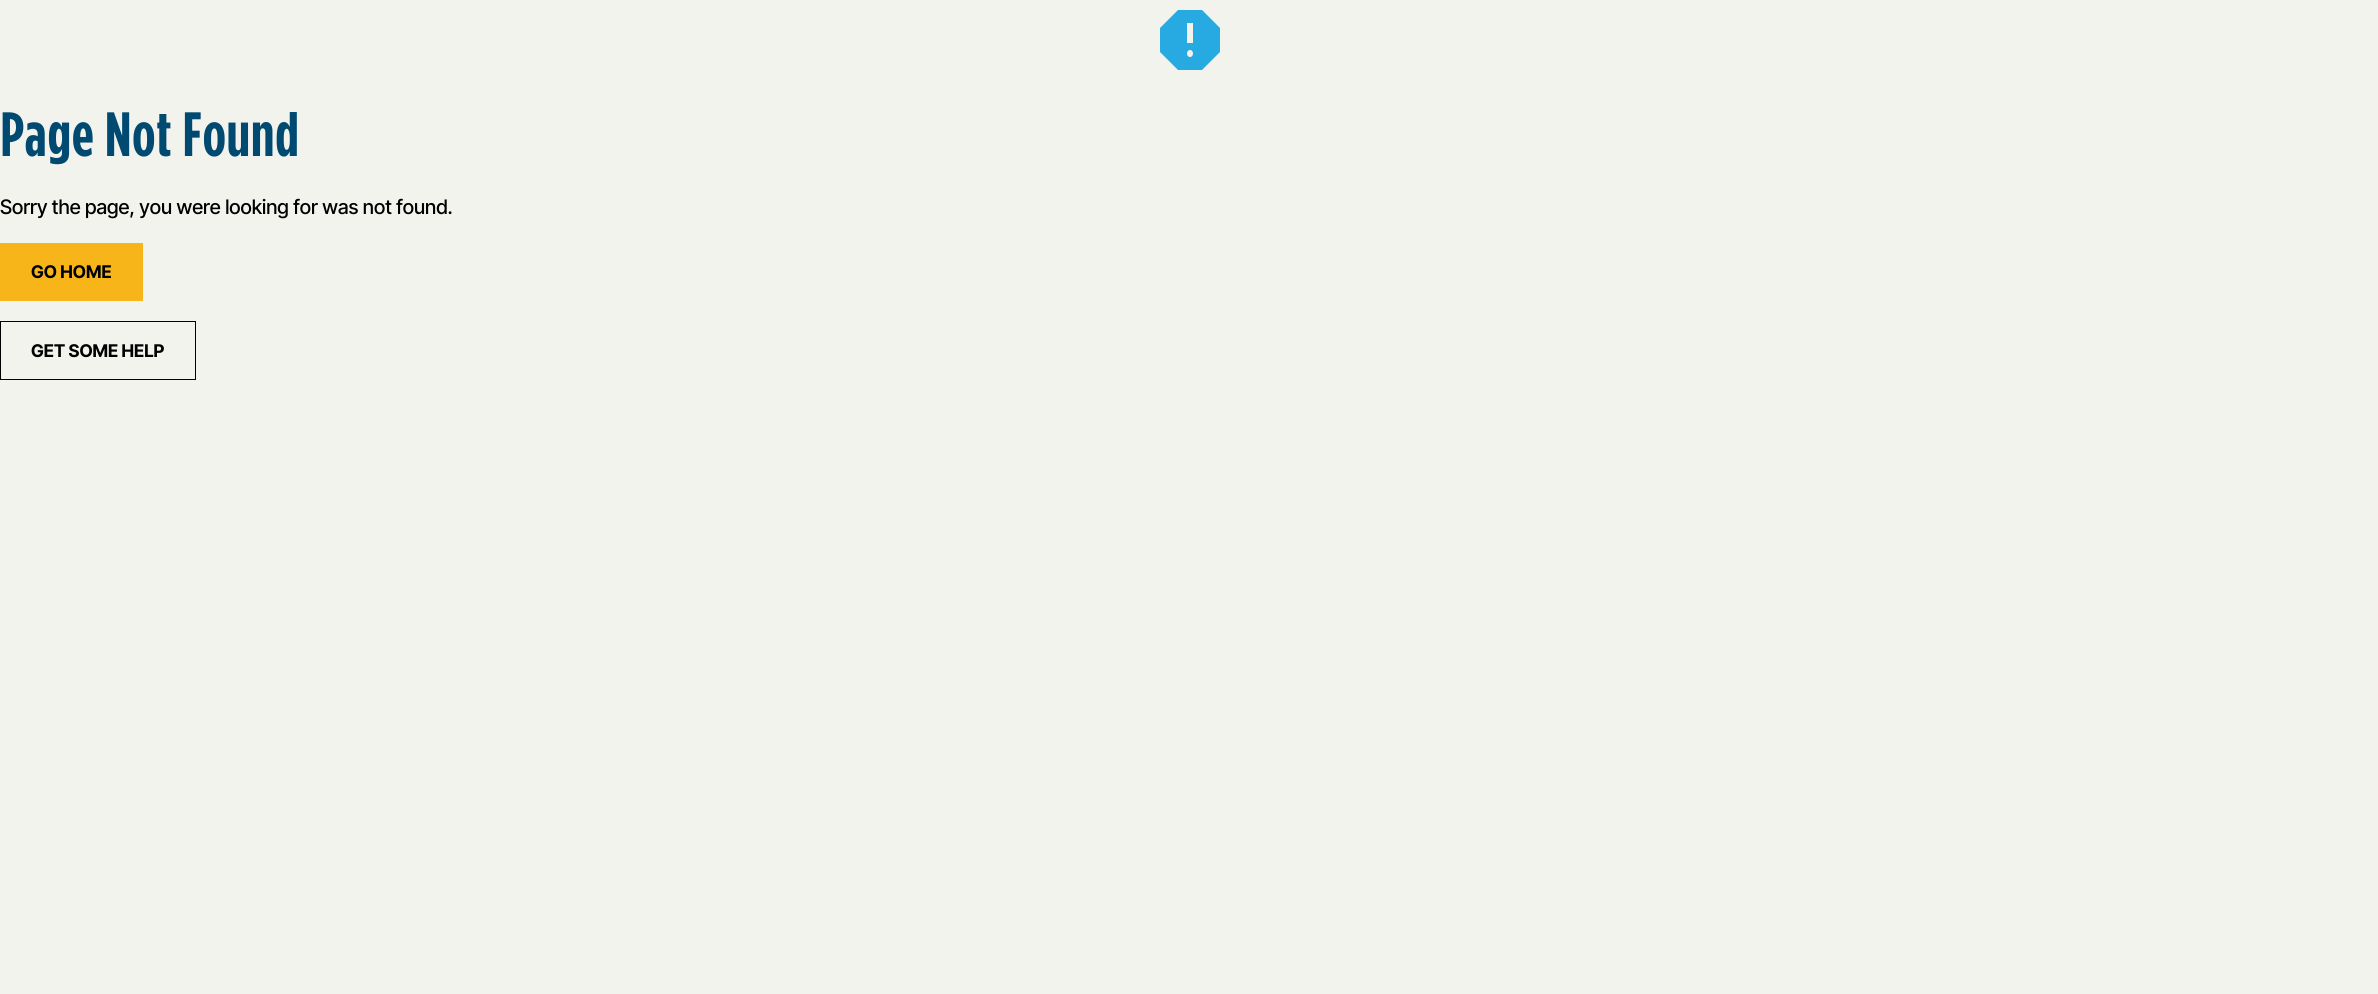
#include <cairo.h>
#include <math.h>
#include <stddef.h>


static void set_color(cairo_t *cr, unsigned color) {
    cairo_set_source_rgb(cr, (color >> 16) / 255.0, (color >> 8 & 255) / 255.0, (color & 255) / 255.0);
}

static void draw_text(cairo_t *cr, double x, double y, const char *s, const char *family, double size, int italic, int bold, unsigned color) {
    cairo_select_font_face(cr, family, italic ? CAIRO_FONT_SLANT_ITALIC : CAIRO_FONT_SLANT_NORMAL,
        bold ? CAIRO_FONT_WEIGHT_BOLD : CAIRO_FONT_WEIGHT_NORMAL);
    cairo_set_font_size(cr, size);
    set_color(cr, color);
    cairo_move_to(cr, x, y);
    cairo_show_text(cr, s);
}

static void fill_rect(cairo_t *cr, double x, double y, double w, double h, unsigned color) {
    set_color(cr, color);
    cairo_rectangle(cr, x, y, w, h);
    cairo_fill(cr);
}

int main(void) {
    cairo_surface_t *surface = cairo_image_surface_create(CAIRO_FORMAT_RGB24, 2378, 994);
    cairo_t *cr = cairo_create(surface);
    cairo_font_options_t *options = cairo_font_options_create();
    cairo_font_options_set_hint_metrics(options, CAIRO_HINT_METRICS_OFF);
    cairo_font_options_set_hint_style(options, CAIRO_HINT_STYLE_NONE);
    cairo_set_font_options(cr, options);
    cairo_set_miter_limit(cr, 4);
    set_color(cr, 0xF3F3EE);
    cairo_paint(cr);
    set_color(cr, 0x27AAE1);
    cairo_new_path(cr);
    cairo_move_to(cr, 1190, 57);
    cairo_curve_to(cr, 1194, 57, 1194, 50, 1190, 50);
    cairo_curve_to(cr, 1186, 50, 1186, 57, 1190, 57);
    cairo_close_path(cr);
    cairo_move_to(cr, 1187, 43);
    cairo_line_to(cr, 1193, 43);
    cairo_line_to(cr, 1193, 23);
    cairo_line_to(cr, 1187, 23);
    cairo_close_path(cr);
    cairo_move_to(cr, 1178, 70);
    cairo_line_to(cr, 1160, 52);
    cairo_line_to(cr, 1160, 28);
    cairo_line_to(cr, 1178, 10);
    cairo_line_to(cr, 1202, 10);
    cairo_line_to(cr, 1220, 28);
    cairo_line_to(cr, 1220, 52);
    cairo_line_to(cr, 1202, 70);
    cairo_close_path(cr);
    cairo_fill(cr);
    draw_text(cr, 0, 156, "Page Not Found", "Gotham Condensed", 60, 0, 1, 0x004A71);
    draw_text(cr, 0, 214, "Sorry the page, you were looking for was not found.", "Inter Tight Medium", 20, 0, 0, 0x000000);
    fill_rect(cr, 0, 243, 143, 58, 0xF7B519);
    draw_text(cr, 31, 278, "GO HOME", "Inter Tight", 17.5, 0, 1, 0x000000);
    cairo_rectangle(cr, 0.5, 321.5, 195, 58);
    cairo_set_line_width(cr, 1);
    cairo_stroke(cr);
    draw_text(cr, 31, 357, "GET SOME HELP", "Inter Tight", 17.5, 0, 1, 0x000000);
    cairo_surface_write_to_png(surface, "output.png");
    cairo_font_options_destroy(options);
    cairo_destroy(cr);
    cairo_surface_destroy(surface);
    return 0;
}
